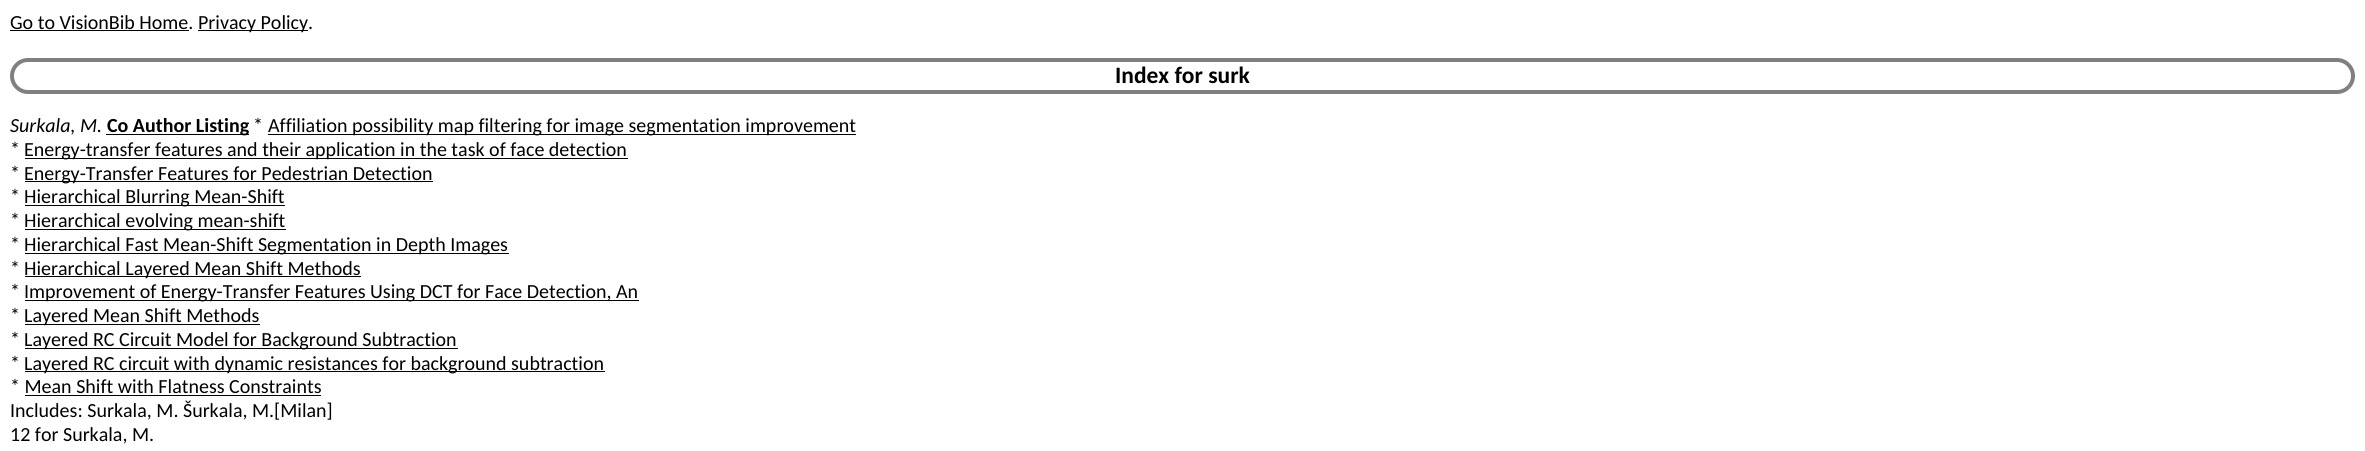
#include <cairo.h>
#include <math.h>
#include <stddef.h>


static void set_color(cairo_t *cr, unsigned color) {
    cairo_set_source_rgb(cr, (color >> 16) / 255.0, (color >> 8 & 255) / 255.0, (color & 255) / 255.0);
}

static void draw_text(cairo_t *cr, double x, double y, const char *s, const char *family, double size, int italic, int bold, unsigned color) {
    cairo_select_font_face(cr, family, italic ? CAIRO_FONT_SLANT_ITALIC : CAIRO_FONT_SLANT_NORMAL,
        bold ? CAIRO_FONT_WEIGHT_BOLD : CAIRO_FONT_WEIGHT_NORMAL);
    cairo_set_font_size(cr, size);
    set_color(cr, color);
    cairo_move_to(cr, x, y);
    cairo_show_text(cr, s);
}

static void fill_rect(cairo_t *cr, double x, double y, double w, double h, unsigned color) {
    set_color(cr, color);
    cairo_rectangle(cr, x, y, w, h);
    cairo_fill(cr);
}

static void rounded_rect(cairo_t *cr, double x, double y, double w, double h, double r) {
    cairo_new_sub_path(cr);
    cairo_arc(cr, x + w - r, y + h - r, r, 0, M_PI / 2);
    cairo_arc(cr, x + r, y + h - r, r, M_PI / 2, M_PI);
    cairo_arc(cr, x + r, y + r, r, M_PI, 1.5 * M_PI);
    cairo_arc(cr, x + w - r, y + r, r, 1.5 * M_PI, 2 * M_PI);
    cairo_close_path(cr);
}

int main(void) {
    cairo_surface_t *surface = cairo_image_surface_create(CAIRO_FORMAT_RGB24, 2365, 451);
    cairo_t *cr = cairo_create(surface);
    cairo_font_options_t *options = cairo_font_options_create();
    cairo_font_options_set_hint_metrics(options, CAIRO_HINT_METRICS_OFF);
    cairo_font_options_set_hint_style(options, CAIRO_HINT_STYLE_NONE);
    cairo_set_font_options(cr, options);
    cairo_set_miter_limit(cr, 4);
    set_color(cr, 0xFFFFFF);
    cairo_paint(cr);
    draw_text(cr, 10, 29, "Go to VisionBib Home.", "Carlito", 20, 0, 0, 0x000000);
    fill_rect(cr, 10, 30, 179, 1, 0x000000);
    fill_rect(cr, 198, 30, 110, 1, 0x000000);
    draw_text(cr, 198, 29, "Privacy Policy.", "Carlito", 20, 0, 0, 0x000000);
    rounded_rect(cr, 12, 60, 2341, 32, 16);
    set_color(cr, 0x808080);
    cairo_set_line_width(cr, 4);
    cairo_stroke(cr);
    draw_text(cr, 1115, 83, "Index for surk", "Carlito", 23.5, 0, 1, 0x000000);
    draw_text(cr, 10, 132, "Surkala, M.", "Carlito", 20, 1, 0, 0x000000);
    fill_rect(cr, 106, 134, 143, 1, 0x000000);
    draw_text(cr, 107, 132, "Co Author Listing", "Carlito", 20, 0, 1, 0x000000);
    draw_text(cr, 253, 132, "*", "Carlito", 20, 0, 0, 0x000000);
    fill_rect(cr, 268, 134, 588, 1, 0x000000);
    draw_text(cr, 268, 132, "Affiliation possibility map filtering for image segmentation improvement", "Carlito", 20, 0, 0, 0x000000);
    draw_text(cr, 10, 156, "*", "Carlito", 20, 0, 0, 0x000000);
    fill_rect(cr, 25, 158, 603, 1, 0x000000);
    draw_text(cr, 24, 156, "Energy-transfer features and their application in the task of face detection", "Carlito", 20, 0, 0, 0x000000);
    draw_text(cr, 10, 180, "*", "Carlito", 20, 0, 0, 0x000000);
    fill_rect(cr, 25, 181, 408, 1, 0x000000);
    draw_text(cr, 24, 180, "Energy-Transfer Features for Pedestrian Detection", "Carlito", 20, 0, 0, 0x000000);
    draw_text(cr, 10, 203, "*", "Carlito", 20, 0, 0, 0x000000);
    fill_rect(cr, 25, 205, 260, 1, 0x000000);
    draw_text(cr, 24, 203, "Hierarchical Blurring Mean-Shift", "Carlito", 20, 0, 0, 0x000000);
    draw_text(cr, 10, 227, "*", "Carlito", 20, 0, 0, 0x000000);
    fill_rect(cr, 25, 229, 261, 1, 0x000000);
    draw_text(cr, 24, 227, "Hierarchical evolving mean-shift", "Carlito", 20, 0, 0, 0x000000);
    draw_text(cr, 10, 251, "*", "Carlito", 20, 0, 0, 0x000000);
    fill_rect(cr, 25, 253, 484, 1, 0x000000);
    draw_text(cr, 24, 251, "Hierarchical Fast Mean-Shift Segmentation in Depth Images", "Carlito", 20, 0, 0, 0x000000);
    draw_text(cr, 10, 275, "*", "Carlito", 20, 0, 0, 0x000000);
    fill_rect(cr, 25, 276, 336, 1, 0x000000);
    draw_text(cr, 24, 275, "Hierarchical Layered Mean Shift Methods", "Carlito", 20, 0, 0, 0x000000);
    draw_text(cr, 10, 298, "*", "Carlito", 20, 0, 0, 0x000000);
    fill_rect(cr, 25, 300, 614, 1, 0x000000);
    draw_text(cr, 24, 298, "Improvement of Energy-Transfer Features Using DCT for Face Detection, An", "Carlito", 20, 0, 0, 0x000000);
    draw_text(cr, 10, 322, "*", "Carlito", 20, 0, 0, 0x000000);
    fill_rect(cr, 25, 324, 235, 1, 0x000000);
    draw_text(cr, 24, 322, "Layered Mean Shift Methods", "Carlito", 20, 0, 0, 0x000000);
    draw_text(cr, 10, 346, "*", "Carlito", 20, 0, 0, 0x000000);
    fill_rect(cr, 25, 348, 433, 1, 0x000000);
    draw_text(cr, 24, 346, "Layered RC Circuit Model for Background Subtraction", "Carlito", 20, 0, 0, 0x000000);
    draw_text(cr, 10, 370, "*", "Carlito", 20, 0, 0, 0x000000);
    fill_rect(cr, 25, 371, 580, 1, 0x000000);
    draw_text(cr, 24, 370, "Layered RC circuit with dynamic resistances for background subtraction", "Carlito", 20, 0, 0, 0x000000);
    draw_text(cr, 10, 393, "* Mean Shift with Flatness Constraints", "Carlito", 20, 0, 0, 0x000000);
    fill_rect(cr, 25, 395, 296, 1, 0x000000);
    draw_text(cr, 10, 417, "Includes: Surkala, M. Šurkala, M.[Milan]", "Carlito", 20, 0, 0, 0x000000);
    draw_text(cr, 10, 441, "12 for Surkala, M.", "Carlito", 20, 0, 0, 0x000000);
    cairo_surface_write_to_png(surface, "output.png");
    cairo_font_options_destroy(options);
    cairo_destroy(cr);
    cairo_surface_destroy(surface);
    return 0;
}
